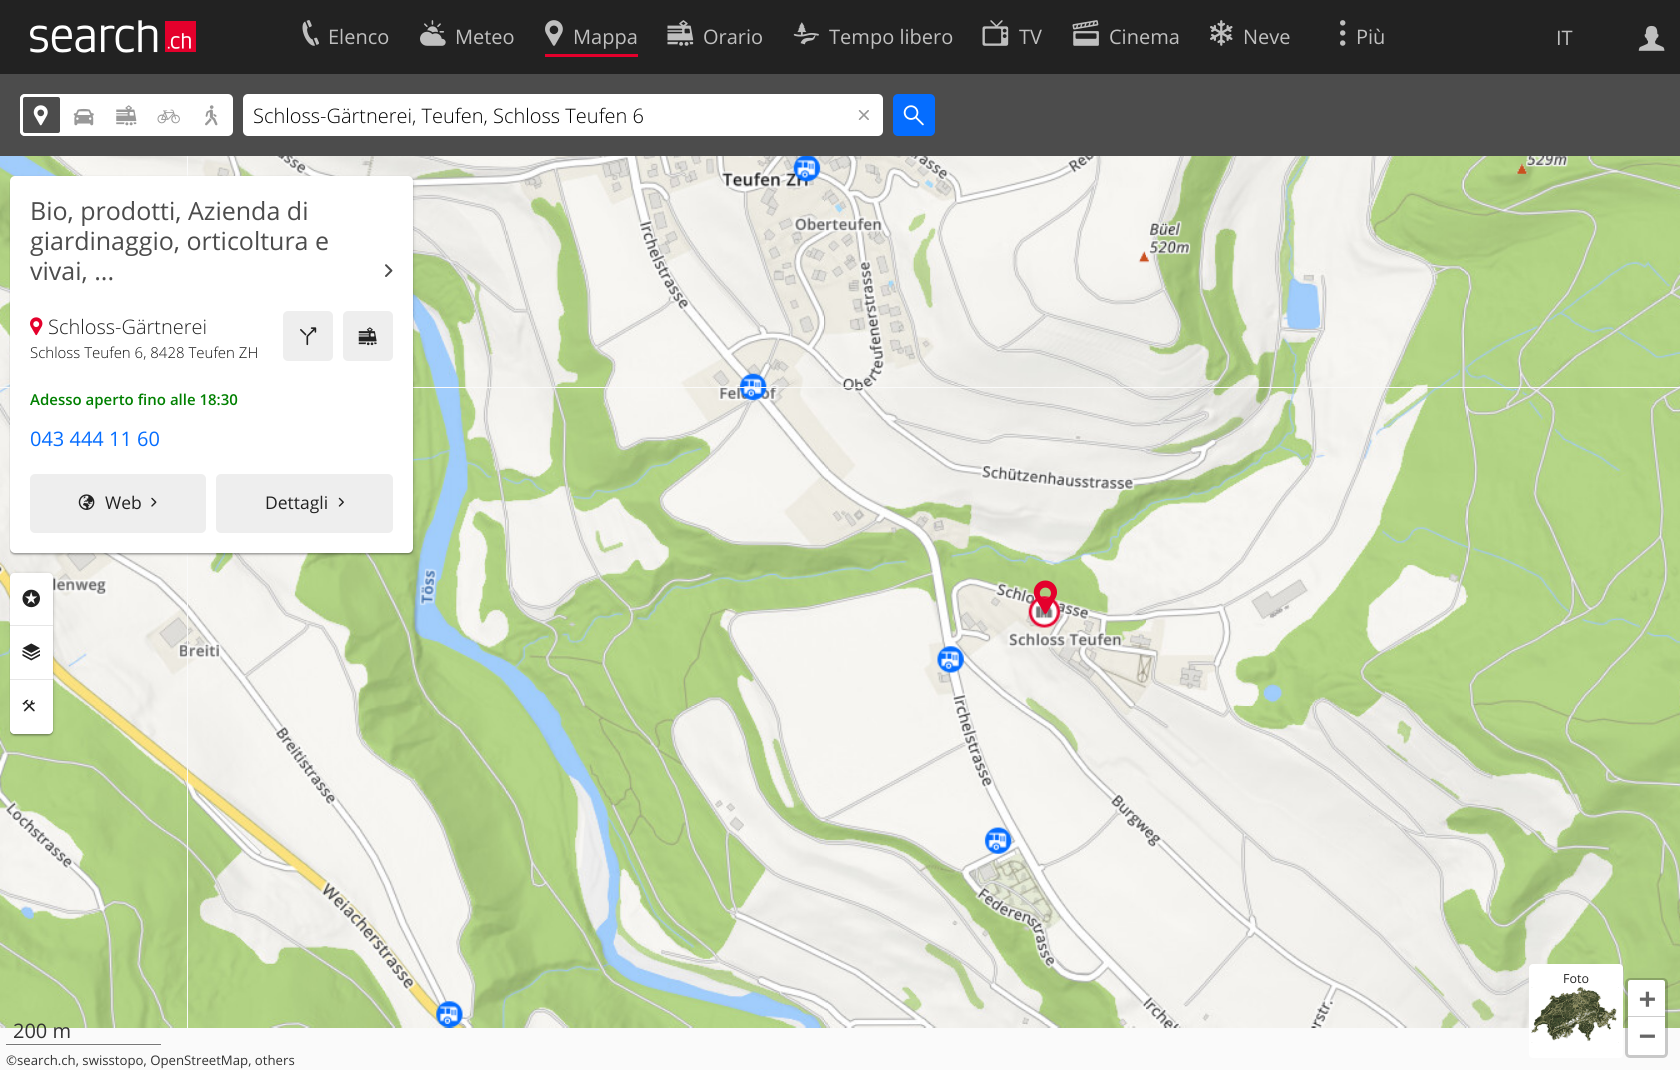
#include <cairo.h>
#include <math.h>
#include <stddef.h>


static void set_color(cairo_t *cr, unsigned color) {
    cairo_set_source_rgb(cr, (color >> 16) / 255.0, (color >> 8 & 255) / 255.0, (color & 255) / 255.0);
}

static void draw_text(cairo_t *cr, double x, double y, const char *s, const char *family, double size, int italic, int bold, unsigned color) {
    cairo_select_font_face(cr, family, italic ? CAIRO_FONT_SLANT_ITALIC : CAIRO_FONT_SLANT_NORMAL,
        bold ? CAIRO_FONT_WEIGHT_BOLD : CAIRO_FONT_WEIGHT_NORMAL);
    cairo_set_font_size(cr, size);
    set_color(cr, color);
    cairo_move_to(cr, x, y);
    cairo_show_text(cr, s);
}

static void fill_rect(cairo_t *cr, double x, double y, double w, double h, unsigned color) {
    set_color(cr, color);
    cairo_rectangle(cr, x, y, w, h);
    cairo_fill(cr);
}

static void rounded_rect(cairo_t *cr, double x, double y, double w, double h, double r) {
    cairo_new_sub_path(cr);
    cairo_arc(cr, x + w - r, y + h - r, r, 0, M_PI / 2);
    cairo_arc(cr, x + r, y + h - r, r, M_PI / 2, M_PI);
    cairo_arc(cr, x + r, y + r, r, M_PI, 1.5 * M_PI);
    cairo_arc(cr, x + w - r, y + r, r, 1.5 * M_PI, 2 * M_PI);
    cairo_close_path(cr);
}

static void draw_shadow(cairo_t *cr, double x, double y, double w, double h, double r, double blur, double alpha) {
    cairo_push_group_with_content(cr, CAIRO_CONTENT_ALPHA);
    cairo_set_operator(cr, CAIRO_OPERATOR_SOURCE);
    for (int i = 15; i >= -15 && fmin(w, h) + blur * i / 3 > 0; i -= 2) {
        double e = blur * i / 6;
        cairo_set_source_rgba(cr, 0, 0, 0, alpha * erfc((i - 1) / 8.5) / 2);
        rounded_rect(cr, x - e, y - e, w + 2 * e, h + 2 * e, fmax(0, fmin(r + e + blur * .6, fmin(w, h) / 2 + e)));
        cairo_fill(cr);
    }
    cairo_pattern_t *soft = cairo_pop_group(cr);
    cairo_mask(cr, soft);
    cairo_pattern_destroy(soft);
}

static void draw_image(cairo_t *cr, const char *path, double x, double y, double w, double h) {
    cairo_surface_t *image = cairo_image_surface_create_from_png(path);
    cairo_save(cr);
    cairo_set_source_surface(cr, image, x, y);
    cairo_rectangle(cr, x, y, w, h);
    cairo_fill(cr);
    cairo_restore(cr);
    cairo_surface_destroy(image);
}

int main(void) {
    cairo_surface_t *surface = cairo_image_surface_create(CAIRO_FORMAT_RGB24, 1680, 1070);
    cairo_t *cr = cairo_create(surface);
    cairo_font_options_t *options = cairo_font_options_create();
    cairo_font_options_set_hint_metrics(options, CAIRO_HINT_METRICS_OFF);
    cairo_font_options_set_hint_style(options, CAIRO_HINT_STYLE_NONE);
    cairo_set_font_options(cr, options);
    cairo_set_miter_limit(cr, 4);
    set_color(cr, 0xFAFAFA);
    cairo_paint(cr);
    fill_rect(cr, 0, 0, 1680, 74, 0x222222);
    draw_image(cr, "assets/img1.png", 30, 20, 166, 33);
    draw_image(cr, "assets/img2.png", 302, 20, 17, 26);
    draw_text(cr, 328, 44, "Elenco", "Open Sans", 20, 0, 0, 0xBFBFBF);
    draw_image(cr, "assets/img3.png", 420, 20, 26, 26);
    draw_text(cr, 455, 44, "Meteo", "Open Sans", 20, 0, 0, 0xBFBFBF);
    fill_rect(cr, 545, 54, 93, 3, 0xE4002C);
    draw_image(cr, "assets/img4.png", 545, 20, 18, 26);
    draw_text(cr, 573, 44, "Mappa", "Open Sans", 20, 0, 0, 0xBFBFBF);
    draw_image(cr, "assets/img5.png", 667, 20, 27, 26);
    draw_text(cr, 703, 44, "Orario", "Open Sans", 20, 0, 0, 0xBFBFBF);
    draw_image(cr, "assets/img6.png", 793, 22, 26, 23);
    draw_text(cr, 829, 44, "Tempo libero", "Open Sans", 20, 0, 0, 0xBFBFBF);
    draw_image(cr, "assets/img7.png", 982, 20, 27, 26);
    draw_text(cr, 1019, 44, "TV", "Open Sans", 20, 0, 0, 0xBFBFBF);
    draw_image(cr, "assets/img8.png", 1072, 20, 27, 26);
    draw_text(cr, 1109, 44, "Cinema", "Open Sans", 20, 0, 0, 0xBFBFBF);
    draw_image(cr, "assets/img9.png", 1210, 20, 23, 26);
    draw_text(cr, 1243, 44, "Neve", "Open Sans", 20, 0, 0, 0xBFBFBF);
    draw_image(cr, "assets/img10.png", 1340, 20, 6, 26);
    draw_text(cr, 1356, 44, "Più", "Open Sans", 20, 0, 0, 0xBFBFBF);
    draw_text(cr, 1556, 45, "IT", "Open Sans", 20, 0, 0, 0xBFBFBF);
    draw_image(cr, "assets/img11.png", 1638, 25, 27, 26);
    fill_rect(cr, 0, 74, 1680, 82, 0x4C4C4C);
    set_color(cr, 0xFFFFFF);
    rounded_rect(cr, 20, 94, 213, 42, 5);
    cairo_fill(cr);
    set_color(cr, 0x4C4C4C);
    rounded_rect(cr, 21.5, 95.5, 40, 39, 3.5);
    cairo_fill_preserve(cr);
    set_color(cr, 0xFFFFFF);
    cairo_set_line_width(cr, 3);
    cairo_stroke(cr);
    draw_image(cr, "assets/img12.png", 33, 105, 15, 21);
    draw_image(cr, "assets/img13.png", 73, 108, 21, 18);
    draw_image(cr, "assets/img14.png", 116, 105, 21, 21);
    draw_image(cr, "assets/img15.png", 157, 109, 23, 15);
    draw_image(cr, "assets/img16.png", 205, 105, 13, 21);
    rounded_rect(cr, 243, 94, 640, 42, 5);
    cairo_fill(cr);
    draw_text(cr, 253, 123, "Schloss-Gärtnerei, Teufen, Schloss Teufen 6", "Open Sans Light", 20, 0, 0, 0x000000);
    draw_image(cr, "assets/img17.png", 858, 110, 11, 10);
    set_color(cr, 0x056DFF);
    rounded_rect(cr, 893, 94, 42, 42, 5);
    cairo_fill(cr);
    draw_image(cr, "assets/img18.png", 903, 105, 21, 21);
    draw_image(cr, "assets/img30.png", 0, 156, 187, 231);
    draw_image(cr, "assets/img31.png", 188, 156, 640, 231);
    draw_image(cr, "assets/img34.png", 0, 388, 187, 640);
    draw_image(cr, "assets/img35.png", 188, 388, 640, 640);
    draw_image(cr, "assets/img38.png", 273, 156, 555, 231);
    draw_image(cr, "assets/img42.png", 188, 388, 591, 640);
    cairo_save(cr);
    cairo_rectangle(cr, 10, 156, 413, 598);
    cairo_clip(cr);
    set_color(cr, 0x000000);
    draw_shadow(cr, 10, 178, 403, 376, 5, 2, 0.2);
    cairo_restore(cr);
    set_color(cr, 0x000000);
    draw_shadow(cr, 10, 179, 403, 376, 5, 0.5, 0.12);
    draw_shadow(cr, 10, 178, 403, 376, 5, 0.5, 0.14);
    set_color(cr, 0xFFFFFF);
    rounded_rect(cr, 10, 176, 403, 377, 5);
    cairo_fill(cr);
    draw_text(cr, 30, 220, "Bio, prodotti, Azienda di", "Open Sans", 25, 0, 0, 0x4C4C4C);
    draw_text(cr, 30, 250, "giardinaggio, orticoltura e", "Open Sans", 25, 0, 0, 0x4C4C4C);
    draw_text(cr, 30, 280, "vivai, ...", "Open Sans", 25, 0, 0, 0x4C4C4C);
    draw_image(cr, "assets/img19.png", 385, 264, 8, 13);
    draw_image(cr, "assets/img20.png", 30, 317, 13, 19);
    draw_text(cr, 48, 334, "Schloss-Gärtnerei", "Open Sans Light", 20, 0, 0, 0x222222);
    set_color(cr, 0xEEEEEE);
    rounded_rect(cr, 283, 311, 50, 50, 5);
    cairo_fill(cr);
    draw_image(cr, "assets/img21.png", 300, 327, 17, 19);
    rounded_rect(cr, 343, 311, 50, 50, 5);
    cairo_fill(cr);
    draw_image(cr, "assets/img22.png", 358, 327, 19, 19);
    draw_text(cr, 30, 358, "Schloss Teufen 6, 8428 Teufen ZH", "Open Sans Light", 15, 0, 0, 0x111111);
    draw_text(cr, 30, 405, "Adesso aperto fino alle 18:30", "Open Sans SemiBold", 15, 0, 0, 0x008000);
    draw_text(cr, 30, 446, "043 444 11 60", "Open Sans", 20, 0, 0, 0x056DFF);
    set_color(cr, 0xEEEEEE);
    rounded_rect(cr, 30, 474, 176, 59, 5);
    cairo_fill(cr);
    draw_image(cr, "assets/img23.png", 78, 494, 17, 16);
    draw_text(cr, 105, 509, "Web", "Open Sans", 17.5, 0, 0, 0x222222);
    draw_image(cr, "assets/img24.png", 151, 497, 6, 10);
    set_color(cr, 0xEEEEEE);
    rounded_rect(cr, 216, 474, 177, 59, 5);
    cairo_fill(cr);
    draw_text(cr, 265, 509, "Dettagli", "Open Sans", 17.5, 0, 0, 0x222222);
    draw_image(cr, "assets/img25.png", 338, 497, 6, 10);
    draw_image(cr, "assets/img41.png", 0, 563, 187, 307);
    cairo_save(cr);
    cairo_rectangle(cr, 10, 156, 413, 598);
    cairo_clip(cr);
    set_color(cr, 0x000000);
    draw_shadow(cr, 10, 574, 43, 161, 5, 2, 0.2);
    cairo_restore(cr);
    set_color(cr, 0x000000);
    draw_shadow(cr, 10, 575, 43, 161, 5, 0.5, 0.12);
    draw_shadow(cr, 10, 574, 43, 161, 5, 0.5, 0.14);
    set_color(cr, 0xFFFFFF);
    rounded_rect(cr, 10, 573, 43, 161, 5);
    cairo_fill(cr);
    cairo_save(cr);
    rounded_rect(cr, 10, 573, 43, 161, 4);
    cairo_clip(cr);
    cairo_new_path(cr);
    cairo_move_to(cr, 15, 573);
    cairo_line_to(cr, 48, 573);
    cairo_curve_to(cr, 51, 573, 53, 575, 53, 578);
    cairo_line_to(cr, 53, 626);
    cairo_line_to(cr, 10, 626);
    cairo_line_to(cr, 10, 578);
    cairo_curve_to(cr, 10, 575, 12, 573, 15, 573);
    cairo_close_path(cr);
    cairo_fill(cr);
    cairo_restore(cr);
    fill_rect(cr, 10, 625, 43, 1, 0xE6E6E6);
    draw_image(cr, "assets/img26.png", 22, 589, 18, 19);
    fill_rect(cr, 10, 679, 43, 1, 0xE6E6E6);
    draw_image(cr, "assets/img27.png", 22, 643, 18, 18);
    cairo_save(cr);
    rounded_rect(cr, 10, 573, 43, 161, 4);
    cairo_clip(cr);
    set_color(cr, 0xFFFFFF);
    cairo_new_path(cr);
    cairo_move_to(cr, 10, 680);
    cairo_line_to(cr, 53, 680);
    cairo_line_to(cr, 53, 729);
    cairo_curve_to(cr, 53, 732, 51, 734, 48, 734);
    cairo_line_to(cr, 15, 734);
    cairo_curve_to(cr, 12, 734, 10, 732, 10, 729);
    cairo_close_path(cr);
    cairo_fill(cr);
    cairo_restore(cr);
    draw_image(cr, "assets/img28.png", 22, 699, 13, 13);
    draw_image(cr, "assets/img37.png", 1468, 388, 212, 640);
    set_color(cr, 0xFFFFFF);
    rounded_rect(cr, 1529, 964, 94, 94, 4);
    cairo_fill(cr);
    draw_image(cr, "assets/img29.png", 1531, 987, 88, 56);
    draw_text(cr, 1563, 983, "Foto", "Open Sans", 12.5, 0, 0, 0x222222);
    draw_image(cr, "assets/img32.png", 828, 156, 640, 231);
    draw_image(cr, "assets/img33.png", 1468, 156, 212, 231);
    draw_image(cr, "assets/img36.png", 828, 388, 640, 640);
    draw_image(cr, "assets/img39.png", 828, 156, 363, 231);
    draw_image(cr, "assets/img40.png", 1516, 156, 53, 18);
    draw_image(cr, "assets/img43.png", 840, 388, 495, 640);
    draw_image(cr, "assets/img44.png", 1033, 580, 24, 34);
    rounded_rect(cr, 1626.5, 979.5, 40, 77, 3.5);
    cairo_set_source_rgba(cr, 0, 0, 0, 0.2);
    cairo_stroke(cr);
    set_color(cr, 0xFFFFFF);
    cairo_new_path(cr);
    cairo_move_to(cr, 1630.5, 980);
    cairo_line_to(cr, 1662.5, 980);
    cairo_curve_to(cr, 1664, 980, 1665, 981, 1665, 982.5);
    cairo_line_to(cr, 1665, 1018);
    cairo_line_to(cr, 1628, 1018);
    cairo_line_to(cr, 1628, 982.5);
    cairo_curve_to(cr, 1628, 981, 1629, 980, 1630.5, 980);
    cairo_close_path(cr);
    cairo_fill(cr);
    fill_rect(cr, 1628, 1016, 37, 1, 0xCCCCCC);
    draw_text(cr, 1639, 1008, "+", "DejaVu Sans Mono", 28, 0, 1, 0x666666);
    set_color(cr, 0xFFFFFF);
    cairo_new_path(cr);
    cairo_move_to(cr, 1628, 1018);
    cairo_line_to(cr, 1665, 1018);
    cairo_line_to(cr, 1665, 1052.5);
    cairo_curve_to(cr, 1665, 1054, 1664, 1055, 1662.5, 1055);
    cairo_line_to(cr, 1630.5, 1055);
    cairo_curve_to(cr, 1629, 1055, 1628, 1054, 1628, 1052.5);
    cairo_close_path(cr);
    cairo_fill(cr);
    draw_text(cr, 1639, 1045, "−", "DejaVu Sans Mono", 28, 0, 1, 0x666666);
    set_color(cr, 0xFDFDFD);
    cairo_new_path(cr);
    cairo_move_to(cr, 6, 1020);
    cairo_line_to(cr, 6, 1046);
    cairo_line_to(cr, 161, 1046);
    cairo_line_to(cr, 161, 1045);
    cairo_line_to(cr, 6, 1045);
    cairo_close_path(cr);
    cairo_fill(cr);
    fill_rect(cr, 6, 1043, 155, 1, 0xFDFDFD);
    fill_rect(cr, 6, 1044, 155, 1, 0x777777);
    draw_text(cr, 13, 1038, "200 m", "Open Sans", 20, 0, 0, 0x333333);
    draw_text(cr, 6, 1065, "©search.ch, swisstopo, OpenStreetMap, others", "Open Sans", 13.2, 0, 0, 0x333333);
    cairo_surface_write_to_png(surface, "output.png");
    cairo_font_options_destroy(options);
    cairo_destroy(cr);
    cairo_surface_destroy(surface);
    return 0;
}
